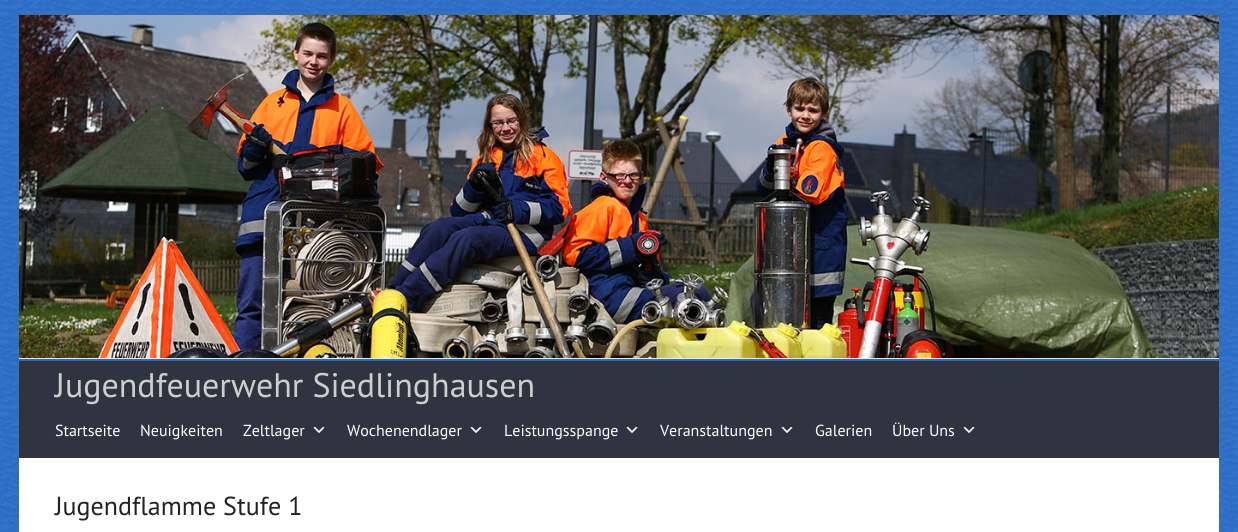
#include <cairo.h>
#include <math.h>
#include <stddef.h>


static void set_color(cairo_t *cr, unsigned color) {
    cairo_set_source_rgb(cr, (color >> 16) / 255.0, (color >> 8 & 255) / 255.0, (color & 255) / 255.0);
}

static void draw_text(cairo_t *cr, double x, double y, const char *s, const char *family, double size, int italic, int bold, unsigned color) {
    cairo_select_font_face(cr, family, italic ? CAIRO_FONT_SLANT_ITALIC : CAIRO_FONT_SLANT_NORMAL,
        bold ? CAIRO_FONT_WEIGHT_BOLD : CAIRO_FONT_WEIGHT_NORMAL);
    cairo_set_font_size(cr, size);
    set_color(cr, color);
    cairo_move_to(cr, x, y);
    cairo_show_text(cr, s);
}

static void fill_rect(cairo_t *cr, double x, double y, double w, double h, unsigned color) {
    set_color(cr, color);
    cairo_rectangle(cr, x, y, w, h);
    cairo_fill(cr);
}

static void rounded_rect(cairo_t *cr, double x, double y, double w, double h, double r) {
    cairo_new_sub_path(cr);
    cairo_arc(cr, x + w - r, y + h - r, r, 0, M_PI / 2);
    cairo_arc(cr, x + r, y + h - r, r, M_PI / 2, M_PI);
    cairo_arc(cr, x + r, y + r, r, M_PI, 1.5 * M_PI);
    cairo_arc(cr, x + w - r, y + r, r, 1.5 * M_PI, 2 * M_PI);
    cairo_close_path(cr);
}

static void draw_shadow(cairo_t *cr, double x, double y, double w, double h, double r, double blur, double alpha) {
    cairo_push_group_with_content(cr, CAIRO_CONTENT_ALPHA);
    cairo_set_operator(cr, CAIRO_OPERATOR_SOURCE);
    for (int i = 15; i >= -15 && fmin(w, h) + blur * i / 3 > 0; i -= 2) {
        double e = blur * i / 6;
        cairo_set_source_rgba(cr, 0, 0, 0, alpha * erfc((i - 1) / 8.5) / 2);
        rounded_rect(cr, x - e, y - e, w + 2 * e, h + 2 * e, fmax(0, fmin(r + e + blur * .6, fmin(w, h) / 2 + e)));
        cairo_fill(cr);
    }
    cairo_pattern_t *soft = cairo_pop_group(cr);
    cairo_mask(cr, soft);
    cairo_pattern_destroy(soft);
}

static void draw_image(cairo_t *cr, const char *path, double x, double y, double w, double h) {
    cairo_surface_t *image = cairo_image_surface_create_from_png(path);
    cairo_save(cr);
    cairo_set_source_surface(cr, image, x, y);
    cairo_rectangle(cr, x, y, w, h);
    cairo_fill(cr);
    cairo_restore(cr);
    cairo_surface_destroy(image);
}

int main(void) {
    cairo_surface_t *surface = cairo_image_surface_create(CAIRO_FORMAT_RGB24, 1238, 532);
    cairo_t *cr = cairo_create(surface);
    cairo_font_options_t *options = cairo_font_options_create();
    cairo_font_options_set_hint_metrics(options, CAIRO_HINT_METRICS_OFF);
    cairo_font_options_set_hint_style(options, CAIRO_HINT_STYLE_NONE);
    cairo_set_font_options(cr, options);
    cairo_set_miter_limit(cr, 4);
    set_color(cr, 0xFFFFFF);
    cairo_paint(cr);
    draw_image(cr, "assets/img1.png", 0, 0, 1238, 532);
    set_color(cr, 0x646464);
    draw_shadow(cr, 19, 17, 1200, 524, 0, 3, 0.3);
    draw_image(cr, "assets/img2.png", 19, 15, 1200, 343);
    fill_rect(cr, 19, 358, 1200, 1, 0xEAEAEA);
    fill_rect(cr, 19, 361, 1200, 97, 0x303440);
    fill_rect(cr, 19, 359, 1200, 2, 0x2B6BC2);
    draw_text(cr, 55, 397, "Jugendfeuerwehr Siedlinghausen", "PT Sans", 34, 0, 0, 0xCECECE);
    draw_text(cr, 55, 436, "Startseite", "PT Sans", 16, 0, 0, 0xFFFFFF);
    draw_text(cr, 140, 436, "Neuigkeiten", "PT Sans", 16, 0, 0, 0xFFFFFF);
    draw_text(cr, 243, 436, "Zeltlager", "PT Sans", 16, 0, 0, 0xFFFFFF);
    draw_image(cr, "assets/img3.png", 313, 426, 12, 7);
    draw_text(cr, 347, 436, "Wochenendlager", "PT Sans", 16, 0, 0, 0xFFFFFF);
    draw_image(cr, "assets/img3.png", 470, 426, 12, 7);
    draw_text(cr, 504, 436, "Leistungsspange", "PT Sans", 16, 0, 0, 0xFFFFFF);
    draw_image(cr, "assets/img3.png", 626, 426, 12, 7);
    draw_text(cr, 660, 436, "Veranstaltungen", "PT Sans", 16, 0, 0, 0xFFFFFF);
    draw_image(cr, "assets/img3.png", 781, 426, 12, 7);
    draw_text(cr, 815, 436, "Galerien", "PT Sans", 16, 0, 0, 0xFFFFFF);
    draw_text(cr, 892, 436, "Über Uns", "PT Sans", 16, 0, 0, 0xFFFFFF);
    draw_image(cr, "assets/img3.png", 963, 426, 12, 7);
    fill_rect(cr, 19, 458, 1200, 74, 0xFFFFFF);
    draw_text(cr, 55, 515, "Jugendflamme Stufe 1", "PT Sans", 26, 0, 0, 0x222222);
    cairo_surface_write_to_png(surface, "output.png");
    cairo_font_options_destroy(options);
    cairo_destroy(cr);
    cairo_surface_destroy(surface);
    return 0;
}
